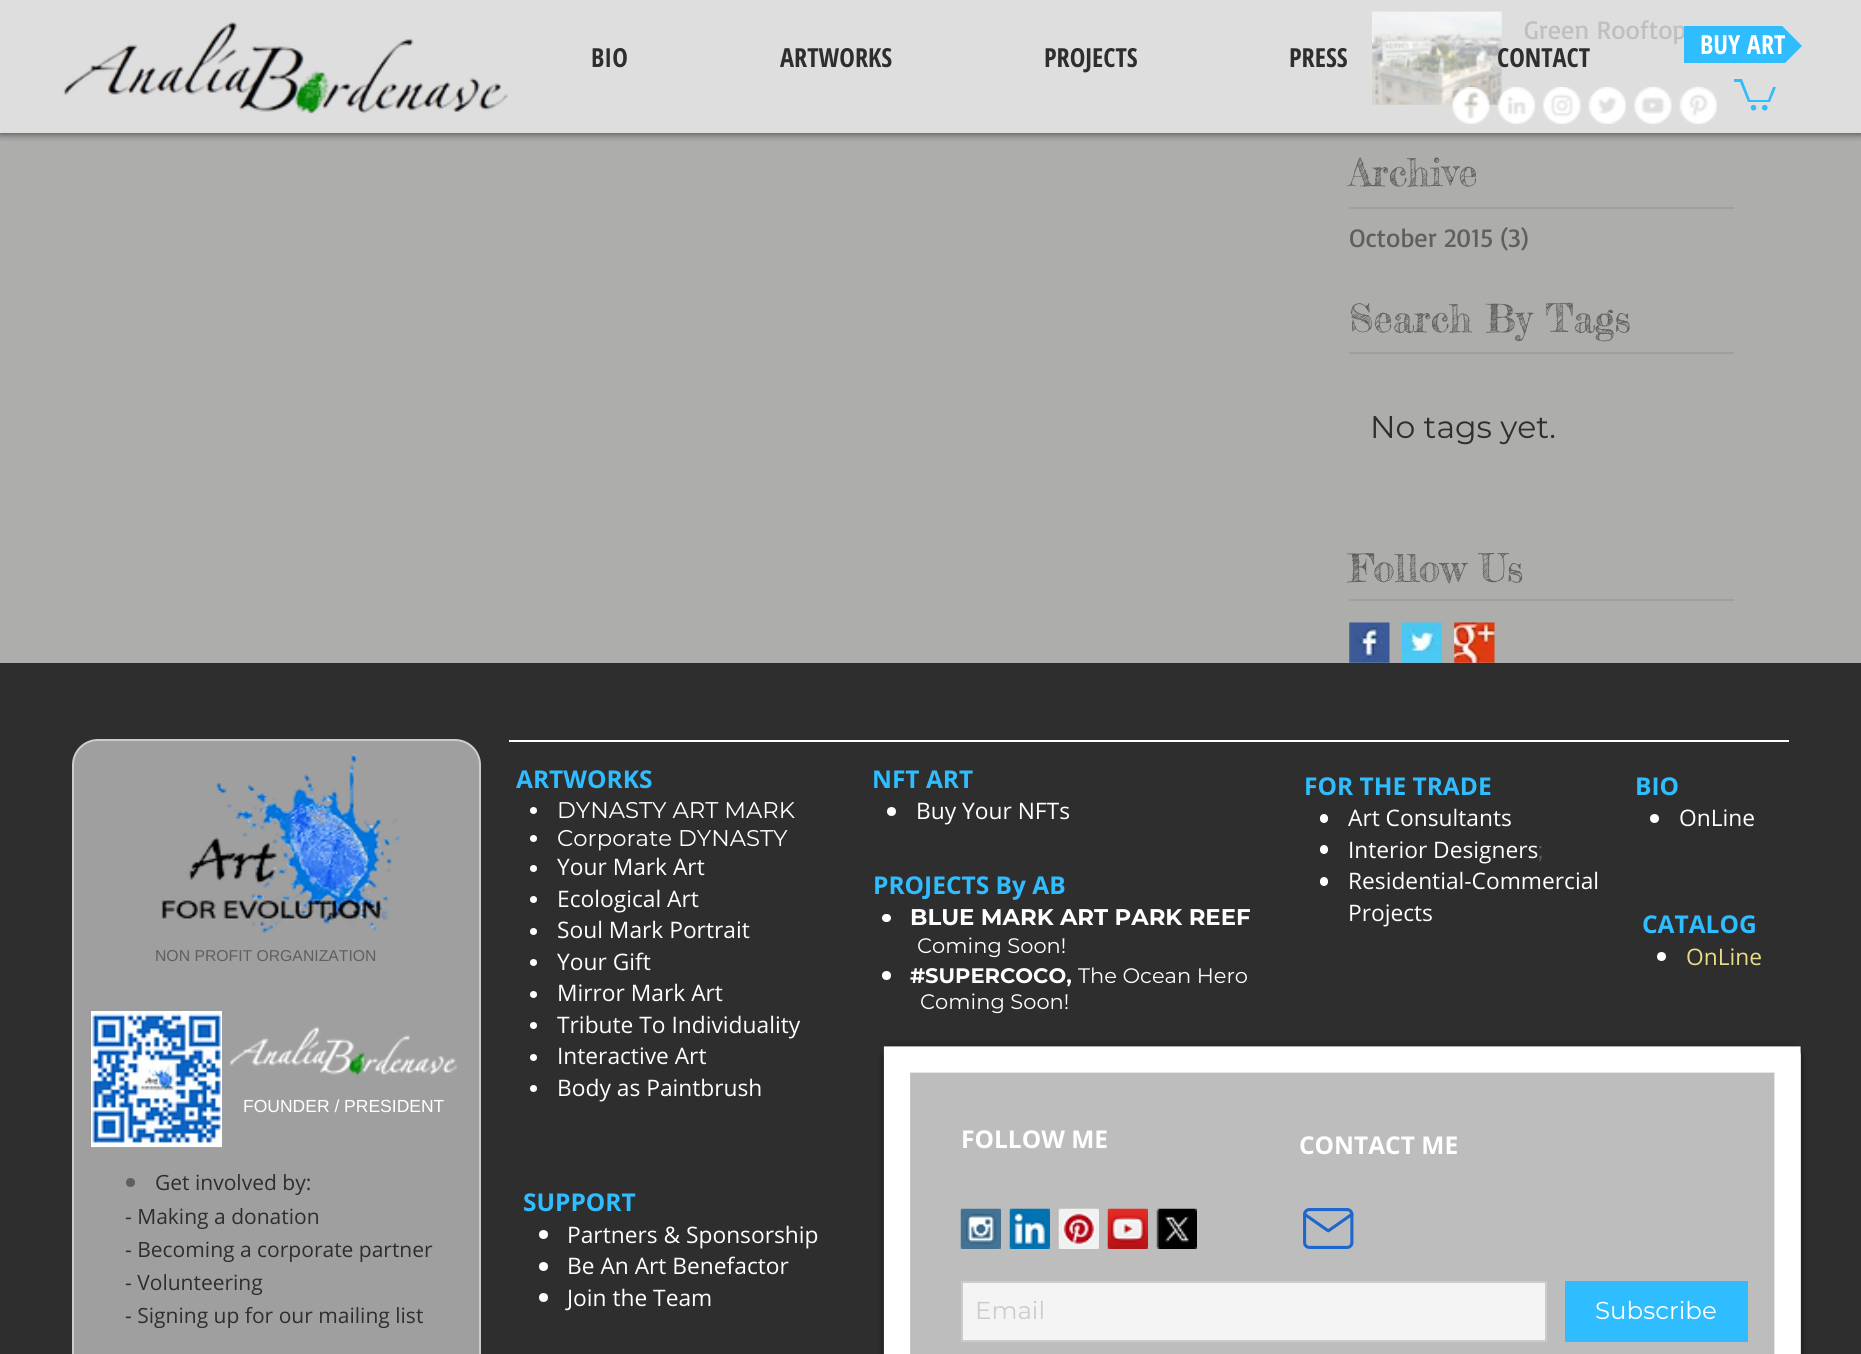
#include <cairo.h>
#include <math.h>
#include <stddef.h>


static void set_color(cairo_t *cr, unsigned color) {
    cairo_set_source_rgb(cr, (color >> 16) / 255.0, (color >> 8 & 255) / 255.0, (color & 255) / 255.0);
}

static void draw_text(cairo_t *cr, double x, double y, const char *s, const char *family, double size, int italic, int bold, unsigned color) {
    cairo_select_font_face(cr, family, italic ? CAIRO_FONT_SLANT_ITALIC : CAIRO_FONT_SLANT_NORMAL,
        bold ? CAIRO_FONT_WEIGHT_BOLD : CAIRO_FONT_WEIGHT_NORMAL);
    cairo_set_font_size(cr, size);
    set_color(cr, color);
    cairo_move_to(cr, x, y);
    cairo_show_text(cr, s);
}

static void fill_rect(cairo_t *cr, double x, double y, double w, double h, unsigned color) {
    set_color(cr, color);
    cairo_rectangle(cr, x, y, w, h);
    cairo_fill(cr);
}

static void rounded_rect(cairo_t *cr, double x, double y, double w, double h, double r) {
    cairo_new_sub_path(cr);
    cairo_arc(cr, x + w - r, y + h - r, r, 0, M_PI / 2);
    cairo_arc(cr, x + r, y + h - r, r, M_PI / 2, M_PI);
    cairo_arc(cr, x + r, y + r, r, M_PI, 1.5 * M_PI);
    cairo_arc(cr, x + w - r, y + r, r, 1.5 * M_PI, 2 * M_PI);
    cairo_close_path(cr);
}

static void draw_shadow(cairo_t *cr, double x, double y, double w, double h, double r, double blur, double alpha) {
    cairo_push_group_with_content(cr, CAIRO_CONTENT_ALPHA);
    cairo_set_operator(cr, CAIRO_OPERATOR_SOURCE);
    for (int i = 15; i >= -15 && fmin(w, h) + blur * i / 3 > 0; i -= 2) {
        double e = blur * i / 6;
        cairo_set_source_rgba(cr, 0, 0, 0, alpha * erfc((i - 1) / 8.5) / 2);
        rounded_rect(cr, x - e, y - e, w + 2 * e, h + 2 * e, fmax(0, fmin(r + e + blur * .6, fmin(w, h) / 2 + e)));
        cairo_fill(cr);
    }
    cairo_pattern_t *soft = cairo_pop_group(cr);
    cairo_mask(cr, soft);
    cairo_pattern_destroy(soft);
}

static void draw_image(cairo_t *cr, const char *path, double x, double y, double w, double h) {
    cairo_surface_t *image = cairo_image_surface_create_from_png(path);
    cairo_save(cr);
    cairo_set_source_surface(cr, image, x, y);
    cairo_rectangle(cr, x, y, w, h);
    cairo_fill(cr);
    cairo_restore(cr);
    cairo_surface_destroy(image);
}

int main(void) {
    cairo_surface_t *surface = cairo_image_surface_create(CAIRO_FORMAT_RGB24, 1861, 1354);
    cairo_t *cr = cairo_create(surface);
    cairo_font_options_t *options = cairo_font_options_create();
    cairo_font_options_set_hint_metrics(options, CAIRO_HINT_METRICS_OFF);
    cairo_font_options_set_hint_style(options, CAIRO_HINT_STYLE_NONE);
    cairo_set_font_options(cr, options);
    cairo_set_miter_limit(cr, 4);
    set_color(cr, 0xADADAC);
    cairo_paint(cr);
    fill_rect(cr, 0, 0, 1861, 133, 0xDEDEDE);
    draw_image(cr, "assets/img1.png", 1372, 11, 130, 94);
    draw_image(cr, "assets/img2.png", 1372, 11, 130, 94);
    draw_text(cr, 1524, 39, "Green Rooftop", "Basic", 26.25, 0, 0, 0xBFBFBF);
    draw_text(cr, 1349, 186, "Archive", "Fredericka the Great", 38.5, 0, 0, 0x605E5E);
    fill_rect(cr, 1349, 207, 385, 2, 0xA0A09F);
    draw_text(cr, 1349, 247, "October 2015 (3)", "Basic", 26.25, 0, 0, 0x605E5E);
    draw_text(cr, 1349, 332, "Search By Tags", "Fredericka the Great", 38.5, 0, 0, 0x605E5E);
    fill_rect(cr, 1349, 352, 385, 2, 0xA0A09F);
    draw_text(cr, 1370, 438, "No tags yet.", "Montserrat", 31.5, 0, 0, 0x2F2E2E);
    draw_text(cr, 1349, 582, "Follow Us", "Fredericka the Great", 38.5, 0, 0, 0x605E5E);
    fill_rect(cr, 1349, 599, 385, 2, 0xA0A09F);
    draw_image(cr, "assets/img3.png", 1349, 622, 41, 41);
    draw_image(cr, "assets/img4.png", 1401, 622, 41, 41);
    draw_image(cr, "assets/img5.png", 1454, 622, 41, 41);
    cairo_save(cr);
    cairo_rectangle(cr, 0, 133, 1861, 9);
    cairo_clip(cr);
    set_color(cr, 0x000000);
    draw_shadow(cr, 0, 0, 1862, 133, 0, 4.5, 0.7);
    cairo_restore(cr);
    draw_image(cr, "assets/img6.png", 63, 22, 445, 92);
    fill_rect(cr, 1684, 26, 31, 37, 0x30BDFF);
    cairo_save(cr);
    cairo_rectangle(cr, 1684, 26, 119, 37);
    cairo_clip(cr);
    cairo_new_path(cr);
    cairo_move_to(cr, 1802, 46);
    cairo_line_to(cr, 1715, 46);
    cairo_line_to(cr, 1715, -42);
    cairo_close_path(cr);
    cairo_fill(cr);
    cairo_new_path(cr);
    cairo_move_to(cr, 1715, 46);
    cairo_line_to(cr, 1802, 46);
    cairo_line_to(cr, 1715, 133);
    cairo_close_path(cr);
    cairo_fill(cr);
    cairo_restore(cr);
    draw_text(cr, 1700, 54, "BUY ART", "Open Sans Condensed", 26.25, 0, 1, 0xFFFFFF);
    draw_text(cr, 591, 67, "BIO", "Open Sans Condensed", 26.25, 0, 1, 0x2F2E2E);
    draw_text(cr, 780, 67, "ARTWORKS", "Open Sans Condensed", 26.25, 0, 1, 0x2F2E2E);
    draw_text(cr, 1044, 67, "PROJECTS", "Open Sans Condensed", 26.25, 0, 1, 0x2F2E2E);
    draw_text(cr, 1289, 67, "PRESS", "Open Sans Condensed", 26.25, 0, 1, 0x2F2E2E);
    draw_text(cr, 1497, 67, "CONTACT", "Open Sans Condensed", 26.25, 0, 1, 0x2F2E2E);
    draw_image(cr, "assets/img7.png", 1452, 87, 38, 37);
    draw_image(cr, "assets/img8.png", 1497, 87, 39, 37);
    draw_image(cr, "assets/img9.png", 1543, 87, 38, 37);
    draw_image(cr, "assets/img10.png", 1588, 87, 38, 37);
    draw_image(cr, "assets/img11.png", 1634, 87, 38, 37);
    draw_image(cr, "assets/img12.png", 1679, 87, 38, 37);
    set_color(cr, 0x30BDFF);
    cairo_new_path(cr);
    cairo_move_to(cr, 1776, 87);
    cairo_line_to(cr, 1770, 102);
    cairo_line_to(cr, 1748, 102);
    cairo_line_to(cr, 1740, 82);
    cairo_line_to(cr, 1734, 82);
    cairo_line_to(cr, 1734, 79);
    cairo_line_to(cr, 1742, 79);
    cairo_line_to(cr, 1750, 100);
    cairo_line_to(cr, 1768, 100);
    cairo_line_to(cr, 1773, 87);
    cairo_fill(cr);
    cairo_arc(cr, 1764.8, 107.7, 2.8, 0, 2 * M_PI);
    cairo_fill(cr);
    cairo_arc(cr, 1753.5, 107.7, 2.8, 0, 2 * M_PI);
    cairo_fill(cr);
    fill_rect(cr, 0, 663, 1861, 691, 0x2F2E2E);
    fill_rect(cr, 509, 740, 1280, 2, 0xFFFFFF);
    draw_text(cr, 516, 788, "ARTWORKS", "Open Sans", 24.5, 0, 1, 0x30BDFF);
    set_color(cr, 0xFFFFFF);
    cairo_new_path(cr);
    cairo_arc(cr, 533.5, 810.5, 3.5, 0, 2 * M_PI);
    cairo_fill(cr);
    draw_text(cr, 557, 818, "DYNASTY ART MARK", "Montserrat", 22.75, 0, 0, 0xFFFFFF);
    cairo_new_path(cr);
    cairo_arc(cr, 533.5, 838.5, 3.5, 0, 2 * M_PI);
    cairo_fill(cr);
    draw_text(cr, 557, 846, "Corporate DYNASTY", "Montserrat", 22.75, 0, 0, 0xFFFFFF);
    cairo_new_path(cr);
    cairo_arc(cr, 533.5, 868.5, 3.5, 0, 2 * M_PI);
    cairo_fill(cr);
    draw_text(cr, 557, 875, "Your Mark Art", "Open Sans", 22.75, 0, 0, 0xFFFFFF);
    cairo_new_path(cr);
    cairo_arc(cr, 533.5, 899.5, 3.5, 0, 2 * M_PI);
    cairo_fill(cr);
    draw_text(cr, 557, 907, "Ecological Art", "Open Sans", 22.75, 0, 0, 0xFFFFFF);
    cairo_new_path(cr);
    cairo_arc(cr, 533.5, 931.5, 3.5, 0, 2 * M_PI);
    cairo_fill(cr);
    draw_text(cr, 557, 938, "Soul Mark Portrait", "Open Sans", 22.75, 0, 0, 0xFFFFFF);
    cairo_new_path(cr);
    cairo_arc(cr, 533.5, 962.5, 3.5, 0, 2 * M_PI);
    cairo_fill(cr);
    draw_text(cr, 557, 970, "Your Gift", "Open Sans", 22.75, 0, 0, 0xFFFFFF);
    cairo_new_path(cr);
    cairo_arc(cr, 533.5, 994.5, 3.5, 0, 2 * M_PI);
    cairo_fill(cr);
    draw_text(cr, 557, 1001, "Mirror Mark Art", "Open Sans", 22.75, 0, 0, 0xFFFFFF);
    cairo_new_path(cr);
    cairo_arc(cr, 533.5, 1025.5, 3.5, 0, 2 * M_PI);
    cairo_fill(cr);
    draw_text(cr, 557, 1033, "Tribute To Individuality", "Open Sans", 22.75, 0, 0, 0xFFFFFF);
    cairo_new_path(cr);
    cairo_arc(cr, 533.5, 1057.5, 3.5, 0, 2 * M_PI);
    cairo_fill(cr);
    draw_text(cr, 557, 1064, "Interactive Art", "Open Sans", 22.75, 0, 0, 0xFFFFFF);
    cairo_new_path(cr);
    cairo_arc(cr, 533.5, 1088.5, 3.5, 0, 2 * M_PI);
    cairo_fill(cr);
    draw_text(cr, 557, 1096, "Body as Paintbrush", "Open Sans", 22.75, 0, 0, 0xFFFFFF);
    draw_text(cr, 872, 788, "NFT ART", "Open Sans", 24.5, 0, 1, 0x30BDFF);
    set_color(cr, 0xFFFFFF);
    cairo_new_path(cr);
    cairo_arc(cr, 891.5, 811.5, 4.5, 0, 2 * M_PI);
    cairo_fill(cr);
    draw_text(cr, 916, 819, "Buy Your NFTs", "Open Sans", 22.75, 0, 0, 0xFFFFFF);
    draw_text(cr, 1304, 795, "FOR THE TRADE", "Open Sans", 24.5, 0, 1, 0x30BDFF);
    set_color(cr, 0xFFFFFF);
    rounded_rect(cr, 1320, 814, 8, 9, 4);
    cairo_fill(cr);
    draw_text(cr, 1348, 826, "Art Consultants", "Open Sans", 22.75, 0, 0, 0xFFFFFF);
    rounded_rect(cr, 1320, 845, 8, 9, 4);
    cairo_fill(cr);
    draw_text(cr, 1348, 858, "Interior Designers", "Open Sans", 22.75, 0, 0, 0xFFFFFF);
    draw_text(cr, 1538, 858, ";", "Montserrat", 22.75, 0, 0, 0x605E5E);
    set_color(cr, 0xFFFFFF);
    rounded_rect(cr, 1320, 877, 8, 9, 4);
    cairo_fill(cr);
    draw_text(cr, 1348, 889, "Residential-Commercial", "Open Sans", 22.75, 0, 0, 0xFFFFFF);
    draw_text(cr, 1348, 921, "Projects", "Open Sans", 22.75, 0, 0, 0xFFFFFF);
    draw_text(cr, 1635, 795, "BIO", "Open Sans", 24.5, 0, 1, 0x30BDFF);
    set_color(cr, 0xFFFFFF);
    cairo_new_path(cr);
    cairo_arc(cr, 1654.5, 818.5, 4.5, 0, 2 * M_PI);
    cairo_fill(cr);
    draw_text(cr, 1679, 826, "OnLine", "Open Sans", 22.75, 0, 0, 0xFFFFFF);
    draw_text(cr, 873, 894, "PROJECTS By AB", "Open Sans", 24.5, 0, 1, 0x30BDFF);
    set_color(cr, 0xFFFFFF);
    rounded_rect(cr, 882, 914, 9, 8, 4);
    cairo_fill(cr);
    draw_text(cr, 910, 925, "BLUE MARK ART PARK REEF", "Montserrat", 22.75, 0, 1, 0xFFFFFF);
    draw_text(cr, 917, 953, "Coming Soon!", "Montserrat", 21, 0, 0, 0xFFFFFF);
    cairo_new_path(cr);
    cairo_arc(cr, 886.5, 975.5, 4.5, 0, 2 * M_PI);
    cairo_fill(cr);
    draw_text(cr, 910, 983, "#SUPERCOCO,", "Montserrat", 21, 0, 1, 0xFFFFFF);
    draw_text(cr, 1078, 983, "The Ocean Hero", "Montserrat", 21, 0, 0, 0xFFFFFF);
    draw_text(cr, 920, 1009, "Coming Soon!", "Montserrat", 21, 0, 0, 0xFFFFFF);
    draw_text(cr, 1642, 933, "CATALOG", "Open Sans", 24.5, 0, 1, 0x30BDFF);
    set_color(cr, 0xFFFFFF);
    cairo_new_path(cr);
    cairo_arc(cr, 1661.5, 956.5, 4.5, 0, 2 * M_PI);
    cairo_fill(cr);
    draw_text(cr, 1686, 965, "OnLine", "Open Sans", 22.75, 0, 0, 0xE9DB89);
    set_color(cr, 0x9F9F9F);
    rounded_rect(cr, 73, 740, 407, 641, 25);
    cairo_fill_preserve(cr);
    set_color(cr, 0xCCCCCC);
    cairo_stroke(cr);
    draw_image(cr, "assets/img13.png", 161, 752, 239, 181);
    draw_text(cr, 155, 961, "NON PROFIT ORGANIZATION", "Liberation Sans", 15.75, 0, 0, 0x605E5E);
    draw_image(cr, "assets/img14.png", 91, 1011, 131, 137);
    draw_image(cr, "assets/img15.png", 229, 1026, 228, 49);
    draw_text(cr, 243, 1112, "FOUNDER / PRESIDENT", "Liberation Sans", 17.5, 0, 0, 0xFFFFFF);
    set_color(cr, 0x605E5E);
    cairo_new_path(cr);
    cairo_arc(cr, 130.5, 1182.5, 4.5, 0, 2 * M_PI);
    cairo_fill(cr);
    draw_text(cr, 155, 1190, "Get involved by:", "Open Sans", 21, 0, 0, 0x2F2E2E);
    draw_text(cr, 125, 1224, "- Making a donation", "Open Sans", 21, 0, 0, 0x2F2E2E);
    draw_text(cr, 125, 1257, "- Becoming a corporate partner", "Open Sans", 21, 0, 0, 0x2F2E2E);
    draw_text(cr, 125, 1290, "- Volunteering", "Open Sans", 21, 0, 0, 0x2F2E2E);
    draw_text(cr, 125, 1323, "- Signing up for our mailing list", "Open Sans", 21, 0, 0, 0x2F2E2E);
    draw_text(cr, 523, 1211, "SUPPORT", "Open Sans", 24.5, 0, 1, 0x30BDFF);
    set_color(cr, 0xFFFFFF);
    cairo_new_path(cr);
    cairo_arc(cr, 543.5, 1234.5, 4.5, 0, 2 * M_PI);
    cairo_fill(cr);
    draw_text(cr, 567, 1243, "Partners & Sponsorship", "Open Sans", 22.75, 0, 0, 0xFFFFFF);
    cairo_new_path(cr);
    cairo_arc(cr, 543.5, 1266.5, 4.5, 0, 2 * M_PI);
    cairo_fill(cr);
    draw_text(cr, 567, 1274, "Be An Art Benefactor", "Open Sans", 22.75, 0, 0, 0xFFFFFF);
    cairo_new_path(cr);
    cairo_arc(cr, 543.5, 1297.5, 4.5, 0, 2 * M_PI);
    cairo_fill(cr);
    draw_text(cr, 567, 1306, "Join the Team", "Open Sans", 22.75, 0, 0, 0xFFFFFF);
    set_color(cr, 0x000000);
    draw_shadow(cr, 884, 1048, 917, 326, 9, 3.5, 0.6);
    set_color(cr, 0xBDBDBD);
    rounded_rect(cr, 884, 1047, 917, 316, 9);
    cairo_fill(cr);
    cairo_new_path(cr);
    cairo_move_to(cr, 897, 1059.5);
    cairo_line_to(cr, 1787.5, 1059.5);
    cairo_line_to(cr, 1787.5, 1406);
    cairo_line_to(cr, 897, 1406);
    cairo_close_path(cr);
    set_color(cr, 0xFFFFFF);
    cairo_set_line_width(cr, 26.2);
    cairo_stroke(cr);
    draw_text(cr, 961, 1148, "FOLLOW ME", "Open Sans", 24.5, 0, 1, 0xFFFFFF);
    draw_text(cr, 1299, 1154, "CONTACT ME", "Open Sans", 24.5, 0, 1, 0xFFFFFF);
    draw_image(cr, "assets/img16.png", 960, 1208, 41, 41);
    draw_image(cr, "assets/img17.png", 1009, 1208, 41, 41);
    draw_image(cr, "assets/img18.png", 1058, 1208, 41, 41);
    draw_image(cr, "assets/img19.png", 1107, 1208, 41, 41);
    draw_image(cr, "assets/img20.png", 1156, 1208, 41, 41);
    draw_image(cr, "assets/img21.png", 1303, 1208, 51, 41);
    set_color(cr, 0xF4F4F4);
    cairo_rectangle(cr, 962, 1282, 584, 59);
    cairo_fill_preserve(cr);
    set_color(cr, 0xCCCCCC);
    cairo_set_line_width(cr, 2);
    cairo_stroke(cr);
    draw_text(cr, 975, 1319, "Email", "Montserrat", 24.5, 0, 0, 0xCCCCCC);
    fill_rect(cr, 1565, 1281, 183, 61, 0x30BDFF);
    draw_text(cr, 1595, 1319, "Subscribe", "Montserrat", 24.5, 0, 0, 0xFFFFFF);
    cairo_surface_write_to_png(surface, "output.png");
    cairo_font_options_destroy(options);
    cairo_destroy(cr);
    cairo_surface_destroy(surface);
    return 0;
}
